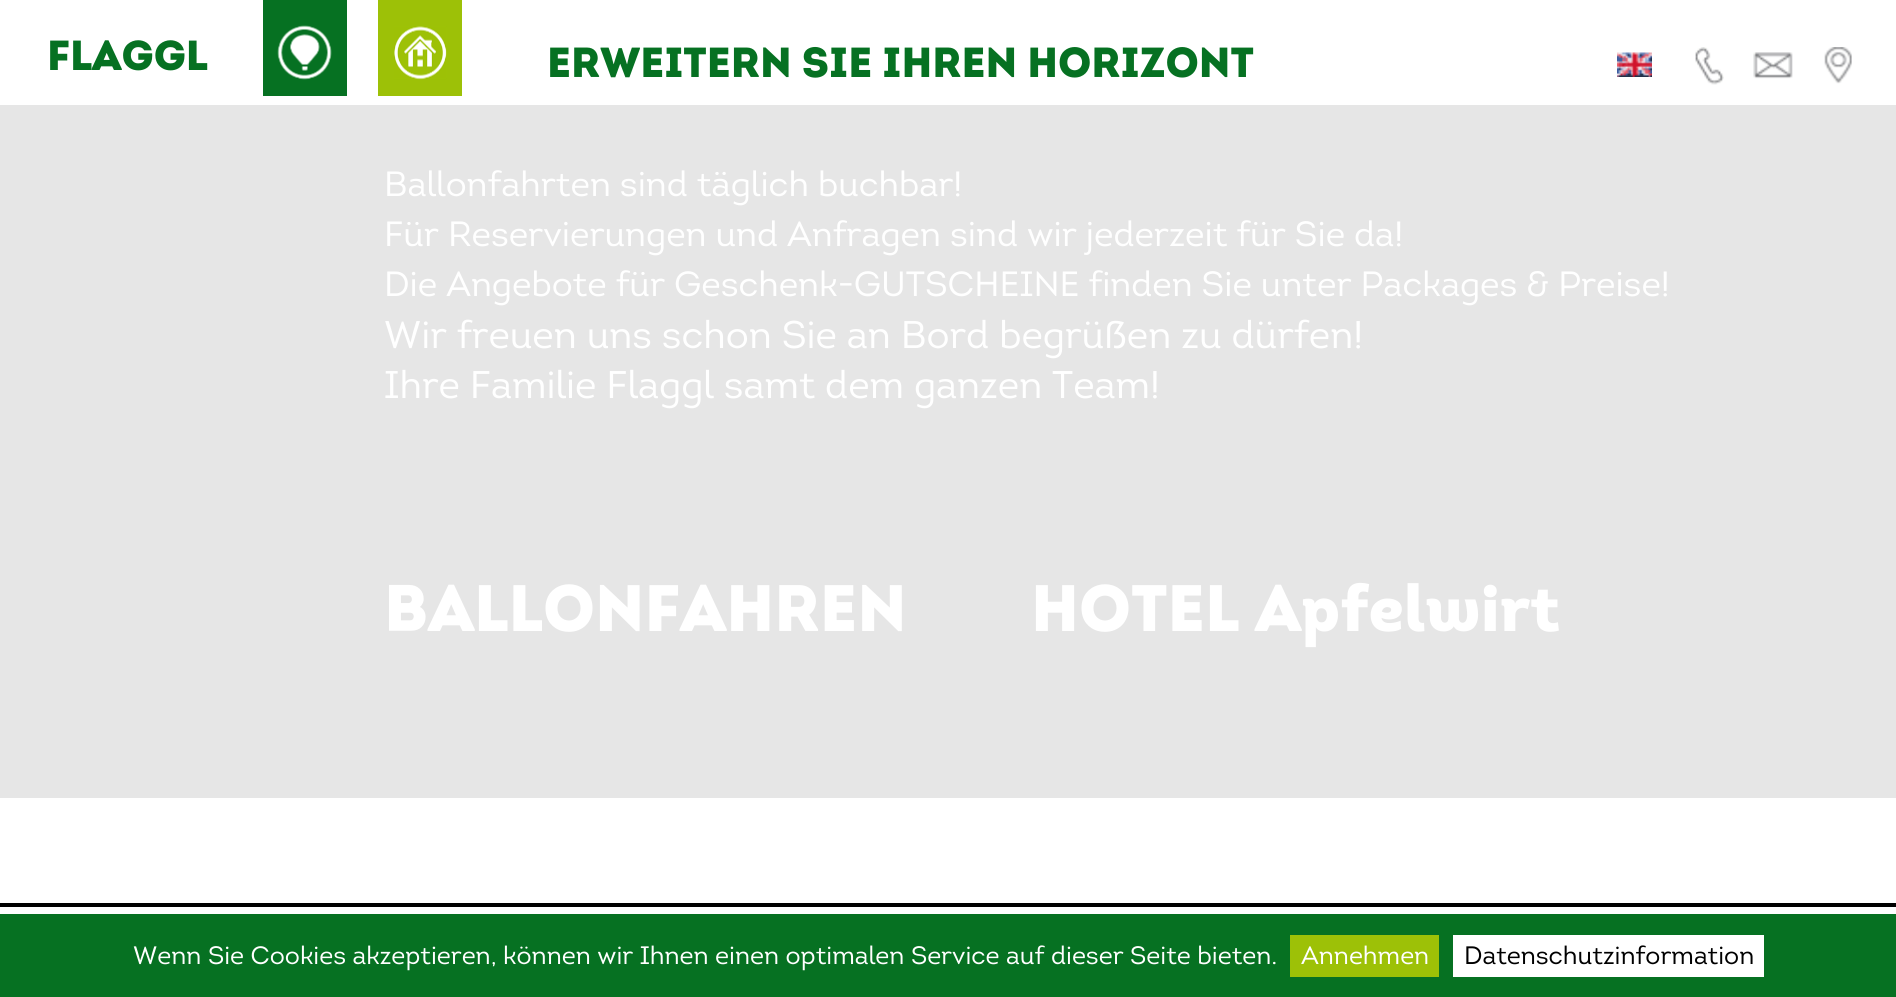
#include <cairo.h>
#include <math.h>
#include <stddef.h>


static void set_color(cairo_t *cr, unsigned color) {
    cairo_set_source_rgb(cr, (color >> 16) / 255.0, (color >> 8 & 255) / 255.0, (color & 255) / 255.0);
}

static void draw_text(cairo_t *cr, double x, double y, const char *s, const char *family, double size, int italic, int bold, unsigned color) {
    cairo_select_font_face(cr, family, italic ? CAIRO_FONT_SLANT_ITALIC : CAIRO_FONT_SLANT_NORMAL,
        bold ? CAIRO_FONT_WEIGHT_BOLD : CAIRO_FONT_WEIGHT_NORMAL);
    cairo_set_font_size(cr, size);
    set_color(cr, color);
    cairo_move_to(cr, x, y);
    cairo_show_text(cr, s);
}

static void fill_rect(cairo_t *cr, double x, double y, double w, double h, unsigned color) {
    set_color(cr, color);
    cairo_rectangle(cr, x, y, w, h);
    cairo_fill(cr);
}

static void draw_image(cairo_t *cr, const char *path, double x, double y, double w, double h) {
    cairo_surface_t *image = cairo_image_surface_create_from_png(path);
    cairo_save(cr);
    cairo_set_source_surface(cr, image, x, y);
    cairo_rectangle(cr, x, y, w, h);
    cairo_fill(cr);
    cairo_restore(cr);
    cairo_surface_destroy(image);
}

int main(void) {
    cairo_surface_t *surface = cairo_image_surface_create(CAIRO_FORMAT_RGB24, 1896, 997);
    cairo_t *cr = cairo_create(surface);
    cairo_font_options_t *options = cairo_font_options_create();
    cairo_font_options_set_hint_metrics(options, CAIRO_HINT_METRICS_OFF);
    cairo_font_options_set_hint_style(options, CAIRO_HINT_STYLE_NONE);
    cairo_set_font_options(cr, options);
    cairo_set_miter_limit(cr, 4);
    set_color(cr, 0xFFFFFF);
    cairo_paint(cr);
    draw_text(cr, 47, 70, "FLAGGL", "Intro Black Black", 42, 0, 0, 0x067122);
    fill_rect(cr, 263, 0, 84, 96, 0x067122);
    draw_image(cr, "assets/img1.png", 277, 25, 55, 55);
    fill_rect(cr, 378, 0, 84, 96, 0x9DC107);
    draw_image(cr, "assets/img2.png", 394, 26, 53, 54);
    draw_text(cr, 547, 77, "ERWEITERN SIE IHREN HORIZONT", "Intro Black Black", 42, 0, 0, 0x067122);
    draw_image(cr, "assets/img3.png", 1617, 52, 35, 25);
    draw_image(cr, "assets/img4.png", 1695, 47, 29, 38);
    draw_image(cr, "assets/img5.png", 1753, 52, 40, 27);
    draw_image(cr, "assets/img6.png", 1824, 47, 28, 37);
    fill_rect(cr, 0, 105, 1896, 693, 0xE6E6E6);
    draw_text(cr, 384, 196, "Ballonfahrten sind täglich buchbar!", "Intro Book", 35, 0, 0, 0xFFFFFF);
    draw_text(cr, 384, 246, "Für Reservierungen und Anfragen sind wir jederzeit für Sie da!", "Intro Book", 35, 0, 0, 0xFFFFFF);
    draw_text(cr, 384, 296, "Die Angebote für Geschenk-GUTSCHEINE finden Sie unter Packages & Preise!", "Intro Book", 35, 0, 0, 0xFFFFFF);
    draw_text(cr, 384, 348, "Wir freuen uns schon Sie an Bord begrüßen zu dürfen!", "Intro Book", 38.5, 0, 0, 0xFFFFFF);
    draw_text(cr, 384, 398, "Ihre Familie Flaggl samt dem ganzen Team!", "Intro Book", 38.5, 0, 0, 0xFFFFFF);
    draw_text(cr, 384, 631, "BALLONFAHREN", "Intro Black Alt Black", 65.5, 0, 0, 0xFFFFFF);
    draw_text(cr, 1031, 631, "HOTEL Apfelwirt", "Intro Black Alt Black", 65.5, 0, 0, 0xFFFFFF);
    fill_rect(cr, 0, 903, 1896, 4, 0x000000);
    fill_rect(cr, 0, 914, 1896, 83, 0x067122);
    draw_text(cr, 133, 964, "Wenn Sie Cookies akzeptieren, können wir Ihnen einen optimalen Service auf dieser Seite bieten.", "Intro Book", 25.2, 0, 0, 0xFFFFFF);
    fill_rect(cr, 1290, 935, 149, 42, 0x9DC107);
    draw_text(cr, 1301, 964, "Annehmen", "Intro Book", 25.2, 0, 0, 0xFFFFFF);
    fill_rect(cr, 1453, 935, 311, 42, 0xFFFFFF);
    draw_text(cr, 1464, 964, "Datenschutzinformation", "Intro Book", 25.2, 0, 0, 0x000000);
    cairo_surface_write_to_png(surface, "output.png");
    cairo_font_options_destroy(options);
    cairo_destroy(cr);
    cairo_surface_destroy(surface);
    return 0;
}
